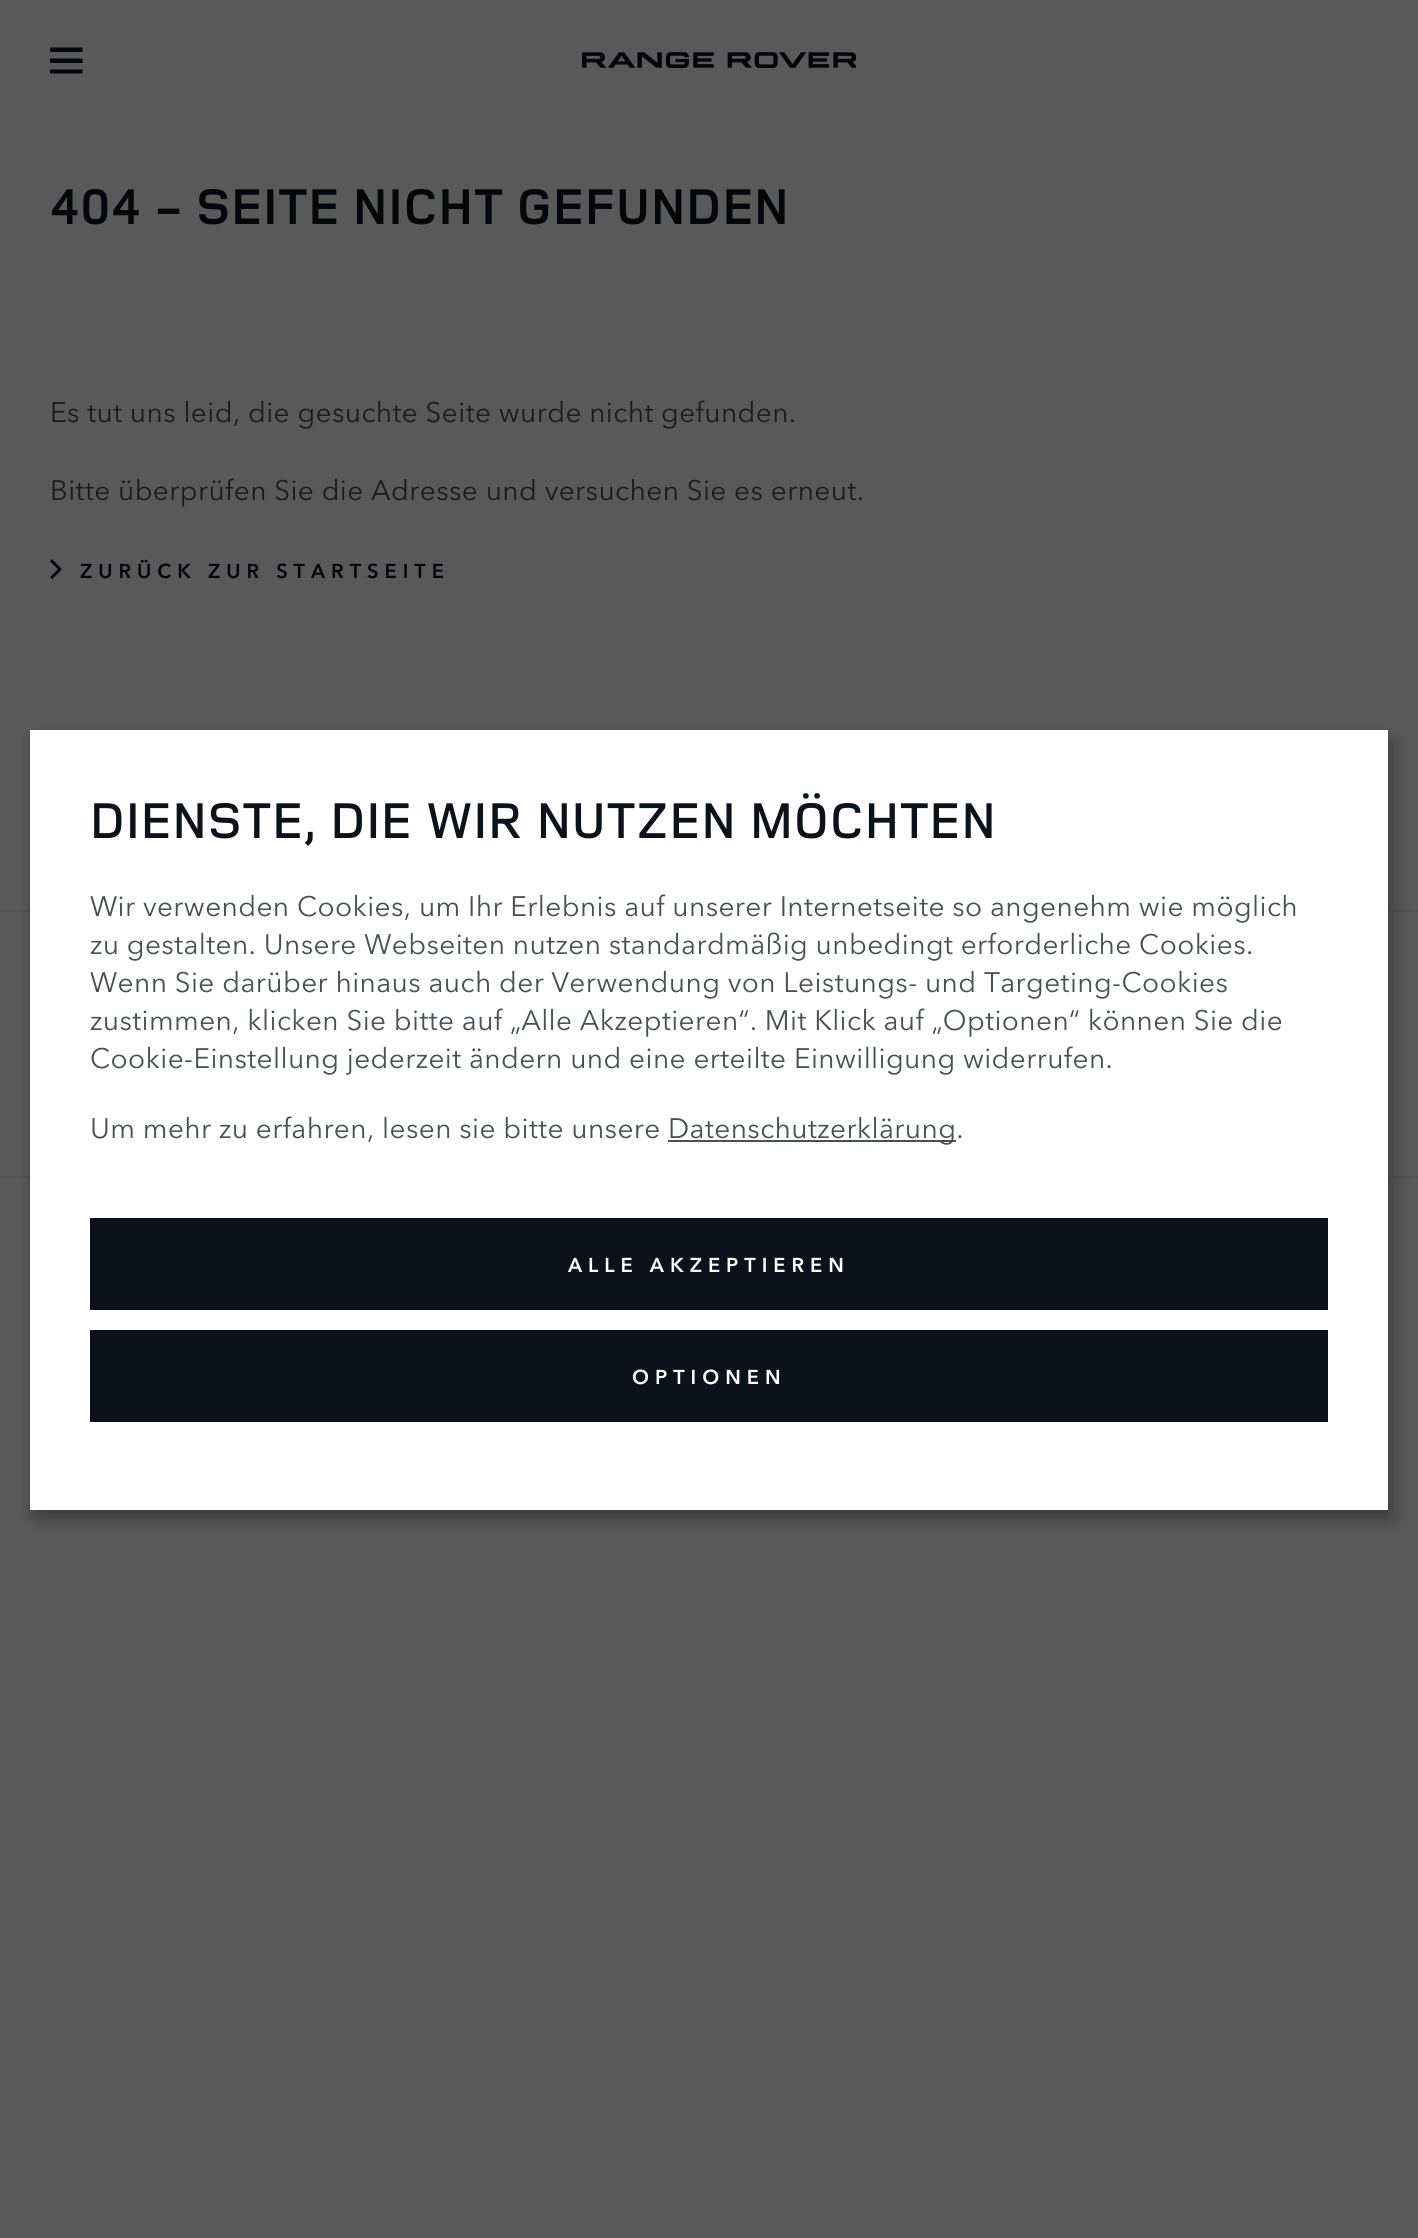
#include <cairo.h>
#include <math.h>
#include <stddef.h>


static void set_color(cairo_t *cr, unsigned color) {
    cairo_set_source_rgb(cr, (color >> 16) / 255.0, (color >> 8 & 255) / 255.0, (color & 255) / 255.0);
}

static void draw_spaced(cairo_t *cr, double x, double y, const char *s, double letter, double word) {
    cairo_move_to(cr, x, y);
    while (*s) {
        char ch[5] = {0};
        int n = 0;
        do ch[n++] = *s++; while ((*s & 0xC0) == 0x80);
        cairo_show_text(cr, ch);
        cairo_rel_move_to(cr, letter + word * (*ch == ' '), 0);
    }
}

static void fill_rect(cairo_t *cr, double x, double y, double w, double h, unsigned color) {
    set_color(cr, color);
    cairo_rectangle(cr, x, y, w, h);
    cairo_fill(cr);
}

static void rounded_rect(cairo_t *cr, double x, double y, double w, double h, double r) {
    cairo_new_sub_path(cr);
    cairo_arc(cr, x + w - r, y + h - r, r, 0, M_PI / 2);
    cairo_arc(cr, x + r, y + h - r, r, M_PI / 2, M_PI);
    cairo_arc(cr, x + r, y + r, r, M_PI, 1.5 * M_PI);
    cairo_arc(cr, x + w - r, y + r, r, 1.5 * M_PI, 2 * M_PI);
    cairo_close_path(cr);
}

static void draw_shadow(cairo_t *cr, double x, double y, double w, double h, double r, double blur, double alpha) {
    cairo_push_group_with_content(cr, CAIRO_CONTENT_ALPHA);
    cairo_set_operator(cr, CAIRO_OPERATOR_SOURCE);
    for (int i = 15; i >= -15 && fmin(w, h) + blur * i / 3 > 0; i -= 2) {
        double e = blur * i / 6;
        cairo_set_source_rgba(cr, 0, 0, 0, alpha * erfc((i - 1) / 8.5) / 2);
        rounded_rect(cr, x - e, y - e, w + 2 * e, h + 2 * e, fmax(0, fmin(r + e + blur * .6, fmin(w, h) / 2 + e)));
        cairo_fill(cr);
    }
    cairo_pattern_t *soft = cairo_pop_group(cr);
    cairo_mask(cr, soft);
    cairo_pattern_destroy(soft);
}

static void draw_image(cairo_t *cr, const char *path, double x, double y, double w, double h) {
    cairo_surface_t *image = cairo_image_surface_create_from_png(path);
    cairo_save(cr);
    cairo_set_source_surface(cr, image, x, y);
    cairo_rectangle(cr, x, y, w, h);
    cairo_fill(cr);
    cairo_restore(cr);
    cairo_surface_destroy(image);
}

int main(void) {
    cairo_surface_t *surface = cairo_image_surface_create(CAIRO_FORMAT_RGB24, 1418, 2238);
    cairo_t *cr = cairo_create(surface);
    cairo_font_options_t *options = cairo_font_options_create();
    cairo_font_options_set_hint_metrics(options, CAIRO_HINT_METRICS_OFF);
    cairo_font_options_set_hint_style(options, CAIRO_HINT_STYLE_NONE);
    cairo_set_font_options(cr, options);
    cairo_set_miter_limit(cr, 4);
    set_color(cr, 0x595959);
    cairo_paint(cr);
    set_color(cr, 0x04060A);
    cairo_new_path(cr);
    cairo_move_to(cr, 82.5, 52);
    cairo_line_to(cr, 50, 52);
    cairo_line_to(cr, 50, 47.5);
    cairo_line_to(cr, 82.5, 47.5);
    cairo_close_path(cr);
    cairo_move_to(cr, 82.5, 58.5);
    cairo_line_to(cr, 50, 58.5);
    cairo_line_to(cr, 50, 63);
    cairo_line_to(cr, 82.5, 63);
    cairo_close_path(cr);
    cairo_move_to(cr, 82.5, 69.5);
    cairo_line_to(cr, 50, 69.5);
    cairo_line_to(cr, 50, 73.5);
    cairo_line_to(cr, 82.5, 73.5);
    cairo_close_path(cr);
    cairo_fill(cr);
    draw_image(cr, "assets/img1.png", 582, 52, 274, 16);
    cairo_select_font_face(cr, "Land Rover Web", CAIRO_FONT_SLANT_NORMAL, CAIRO_FONT_WEIGHT_BOLD);
    cairo_set_font_size(cr, 52);
    draw_spaced(cr, 50, 224, "404 - SEITE NICHT GEFUNDEN", 1, 0);
    cairo_select_font_face(cr, "Avenir Next", CAIRO_FONT_SLANT_NORMAL, CAIRO_FONT_WEIGHT_NORMAL);
    cairo_set_font_size(cr, 28);
    set_color(cr, 0x1A1C1D);
    draw_spaced(cr, 50, 422, "Es tut uns leid, die gesuchte Seite wurde nicht gefunden.", 0.4, 0);
    draw_spaced(cr, 50, 500, "Bitte überprüfen Sie die Adresse und versuchen Sie es erneut.", 0.4, 0);
    draw_image(cr, "assets/img2.png", 50, 559, 12, 21);
    cairo_select_font_face(cr, "Avenir Next SemiBold", CAIRO_FONT_SLANT_NORMAL, CAIRO_FONT_WEIGHT_NORMAL);
    cairo_set_font_size(cr, 20);
    set_color(cr, 0x04060A);
    draw_spaced(cr, 80, 578, "ZURÜCK ZUR STARTSEITE", 6, 0);
    fill_rect(cr, 0, 910, 1418, 2, 0x515252);
    fill_rect(cr, 0, 1176, 1418, 2, 0x515252);
    set_color(cr, 0x000000);
    draw_shadow(cr, 40, 740, 1358, 780, 0, 10, 0.19);
    draw_shadow(cr, 30, 738, 1358, 780, 0, 6, 0.2);
    fill_rect(cr, 30, 730, 1358, 780, 0xFFFFFF);
    cairo_select_font_face(cr, "Land Rover Web SemiBold", CAIRO_FONT_SLANT_NORMAL, CAIRO_FONT_WEIGHT_NORMAL);
    cairo_set_font_size(cr, 52);
    set_color(cr, 0x0C121C);
    draw_spaced(cr, 90, 838, "DIENSTE, DIE WIR NUTZEN MÖCHTEN", 1, 0);
    cairo_select_font_face(cr, "Avenir Next", CAIRO_FONT_SLANT_NORMAL, CAIRO_FONT_WEIGHT_NORMAL);
    cairo_set_font_size(cr, 28);
    set_color(cr, 0x4A4F54);
    draw_spaced(cr, 90, 916, "Wir verwenden Cookies, um Ihr Erlebnis auf unserer Internetseite so angenehm wie möglich", 0.4, 0);
    draw_spaced(cr, 90, 954, "zu gestalten. Unsere Webseiten nutzen standardmäßig unbedingt erforderliche Cookies.", 0.4, 0);
    draw_spaced(cr, 90, 992, "Wenn Sie darüber hinaus auch der Verwendung von Leistungs- und Targeting-Cookies", 0.4, 0);
    draw_spaced(cr, 90, 1030, "zustimmen, klicken Sie bitte auf „Alle Akzeptieren“. Mit Klick auf „Optionen“ können Sie die", 0.4, 0);
    draw_spaced(cr, 90, 1068, "Cookie-Einstellung jederzeit ändern und eine erteilte Einwilligung widerrufen.", 0.4, 0);
    draw_spaced(cr, 90, 1138, "Um mehr zu erfahren, lesen sie bitte unsere", 0.4, 0);
    fill_rect(cr, 668, 1140, 288, 2, 0x4A4F54);
    draw_spaced(cr, 668, 1138, "Datenschutzerklärung.", 0.4, 0);
    fill_rect(cr, 90, 1218, 1238, 92, 0x0C121C);
    cairo_select_font_face(cr, "Avenir Next SemiBold", CAIRO_FONT_SLANT_NORMAL, CAIRO_FONT_WEIGHT_NORMAL);
    cairo_set_font_size(cr, 20);
    set_color(cr, 0xFFFFFF);
    draw_spaced(cr, 568, 1272, "ALLE AKZEPTIEREN", 6, 0);
    fill_rect(cr, 90, 1330, 1238, 92, 0x0C121C);
    set_color(cr, 0xFFFFFF);
    draw_spaced(cr, 632, 1384, "OPTIONEN", 6, 0);
    cairo_surface_write_to_png(surface, "output.png");
    cairo_font_options_destroy(options);
    cairo_destroy(cr);
    cairo_surface_destroy(surface);
    return 0;
}
